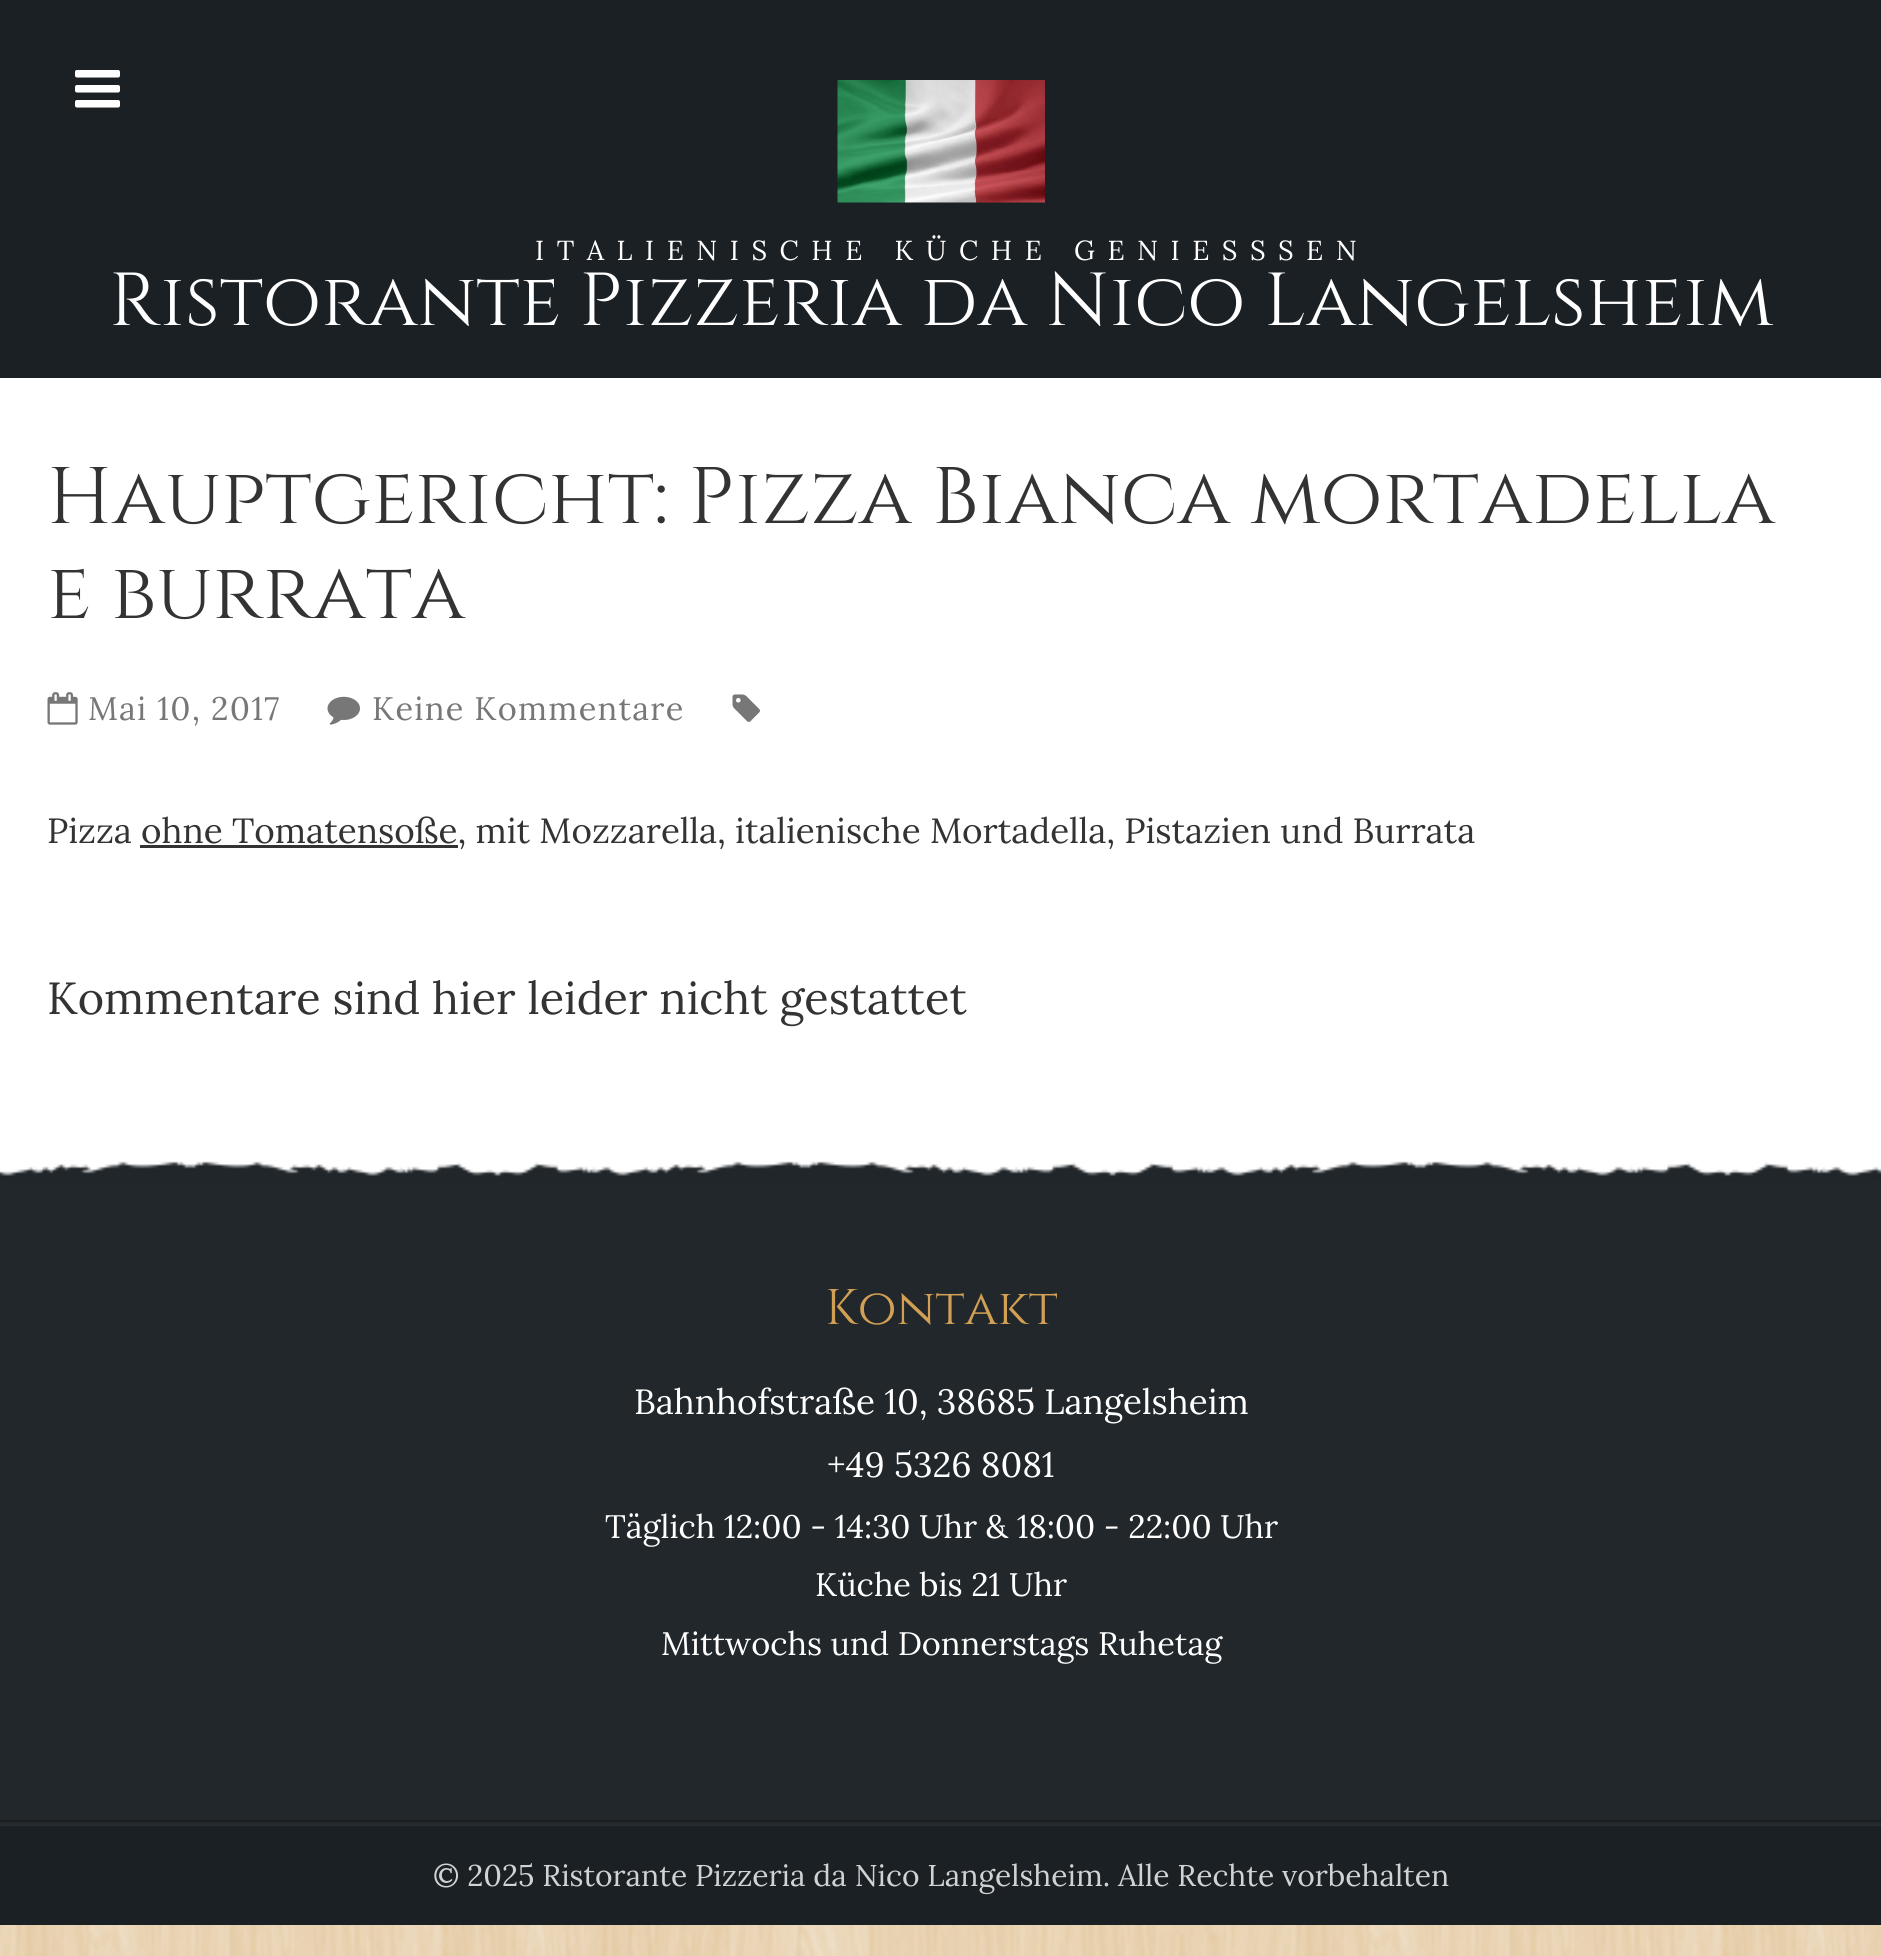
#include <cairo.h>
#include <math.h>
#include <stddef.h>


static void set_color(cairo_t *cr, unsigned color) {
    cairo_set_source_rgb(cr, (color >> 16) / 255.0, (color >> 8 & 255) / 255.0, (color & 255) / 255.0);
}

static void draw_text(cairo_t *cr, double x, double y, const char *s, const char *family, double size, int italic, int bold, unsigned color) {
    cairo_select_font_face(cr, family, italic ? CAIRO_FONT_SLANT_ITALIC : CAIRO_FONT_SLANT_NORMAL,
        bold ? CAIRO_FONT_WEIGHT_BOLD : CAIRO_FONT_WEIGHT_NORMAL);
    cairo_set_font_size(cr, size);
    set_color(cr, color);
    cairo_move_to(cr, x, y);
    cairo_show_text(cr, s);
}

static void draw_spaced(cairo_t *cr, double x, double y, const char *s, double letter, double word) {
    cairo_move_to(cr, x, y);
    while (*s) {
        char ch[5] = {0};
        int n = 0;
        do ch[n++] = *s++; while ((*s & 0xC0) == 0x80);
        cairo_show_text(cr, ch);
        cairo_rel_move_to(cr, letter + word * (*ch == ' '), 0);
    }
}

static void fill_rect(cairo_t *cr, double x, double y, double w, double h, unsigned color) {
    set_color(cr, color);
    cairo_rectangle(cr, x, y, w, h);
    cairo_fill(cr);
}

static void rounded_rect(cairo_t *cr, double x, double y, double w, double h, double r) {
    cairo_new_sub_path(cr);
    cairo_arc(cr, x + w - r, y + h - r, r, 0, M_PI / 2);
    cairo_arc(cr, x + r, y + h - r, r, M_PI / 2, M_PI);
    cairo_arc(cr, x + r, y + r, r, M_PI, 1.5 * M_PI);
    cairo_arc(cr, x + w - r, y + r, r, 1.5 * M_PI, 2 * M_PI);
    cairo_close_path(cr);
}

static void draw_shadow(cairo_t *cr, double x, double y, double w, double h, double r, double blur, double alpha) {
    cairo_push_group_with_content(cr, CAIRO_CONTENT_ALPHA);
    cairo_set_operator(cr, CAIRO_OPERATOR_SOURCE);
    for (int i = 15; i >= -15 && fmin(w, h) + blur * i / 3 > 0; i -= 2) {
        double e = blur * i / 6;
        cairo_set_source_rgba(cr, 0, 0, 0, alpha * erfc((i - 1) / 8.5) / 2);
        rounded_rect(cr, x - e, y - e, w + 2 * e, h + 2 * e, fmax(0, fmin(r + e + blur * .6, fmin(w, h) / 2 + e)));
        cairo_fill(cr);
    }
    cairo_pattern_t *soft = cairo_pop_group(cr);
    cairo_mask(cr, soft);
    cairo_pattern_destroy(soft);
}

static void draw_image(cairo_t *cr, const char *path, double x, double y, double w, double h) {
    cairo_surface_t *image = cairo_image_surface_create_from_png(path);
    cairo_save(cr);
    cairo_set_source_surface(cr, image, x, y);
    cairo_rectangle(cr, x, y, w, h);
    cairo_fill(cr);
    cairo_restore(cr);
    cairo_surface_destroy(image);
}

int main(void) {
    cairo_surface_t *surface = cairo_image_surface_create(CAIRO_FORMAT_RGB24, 1881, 1956);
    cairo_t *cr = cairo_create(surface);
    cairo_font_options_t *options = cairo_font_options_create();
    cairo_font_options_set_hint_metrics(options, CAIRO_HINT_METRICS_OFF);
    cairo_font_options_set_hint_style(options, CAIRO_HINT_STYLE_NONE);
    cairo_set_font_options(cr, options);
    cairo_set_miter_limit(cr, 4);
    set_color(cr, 0xFFFFFF);
    cairo_paint(cr);
    draw_image(cr, "assets/img1.png", 0, 1925, 1881, 31);
    fill_rect(cr, 0, 1161, 1881, 662, 0x22272B);
    set_color(cr, 0x000000);
    draw_shadow(cr, 0, 303, 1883, 857, 0, 19, 0.1);
    fill_rect(cr, 0, 0, 1881, 378, 0x1B2024);
    draw_image(cr, "assets/img2.png", 75, 70, 45, 38);
    draw_image(cr, "assets/img3.png", 837, 80, 208, 123);
    cairo_select_font_face(cr, "Lora", CAIRO_FONT_SLANT_NORMAL, CAIRO_FONT_WEIGHT_NORMAL);
    cairo_set_font_size(cr, 27.5);
    set_color(cr, 0xFFFFFF);
    draw_spaced(cr, 535, 260, "ITALIENISCHE KÜCHE GENIESSSEN", 12.5, 0);
    draw_text(cr, 109, 325, "Ristorante Pizzeria da Nico Langelsheim", "Cinzel", 75, 0, 0, 0xFFFFFF);
    fill_rect(cr, 0, 378, 1881, 782, 0xFFFFFF);
    draw_text(cr, 47, 523, "Hauptgericht: Pizza Bianca mortadella", "Cinzel", 80, 0, 0, 0x333333);
    draw_text(cr, 47, 618, "e burrata", "Cinzel", 80, 0, 0, 0x333333);
    draw_image(cr, "assets/img4.png", 47, 692, 31, 33);
    cairo_select_font_face(cr, "Lora", CAIRO_FONT_SLANT_NORMAL, CAIRO_FONT_WEIGHT_NORMAL);
    cairo_set_font_size(cr, 32.5);
    set_color(cr, 0x777777);
    draw_spaced(cr, 88, 720, "Mai 10, 2017", 1.25, 0);
    draw_image(cr, "assets/img5.png", 327, 696, 33, 29);
    draw_spaced(cr, 372, 720, "Keine Kommentare", 1.25, 0);
    draw_image(cr, "assets/img6.png", 732, 694, 28, 28);
    draw_text(cr, 47, 843, "Pizza ohne Tomatensoße, mit Mozzarella, italienische Mortadella, Pistazien und Burrata", "Lora", 35, 0, 0, 0x333333);
    fill_rect(cr, 140, 845, 318, 3, 0x333333);
    draw_text(cr, 47, 1014, "Kommentare sind hier leider nicht gestattet", "Lora", 45, 0, 0, 0x333333);
    draw_image(cr, "assets/img7.png", 0, 1160, 1881, 17);
    fill_rect(cr, 0, 1826, 1881, 99, 0x1B2024);
    draw_text(cr, 825, 1324, "Kontakt", "Cinzel", 50, 0, 0, 0xD1A054);
    draw_text(cr, 634, 1414, "Bahnhofstraße 10, 38685 Langelsheim", "Lora", 35, 0, 0, 0xFFFFFF);
    draw_text(cr, 827, 1477, "+49 5326 8081", "Lora", 35, 0, 0, 0xFFFFFF);
    draw_text(cr, 605, 1538, "Täglich 12:00 - 14:30 Uhr & 18:00 - 22:00 Uhr", "Lora", 32.5, 0, 0, 0xFFFFFF);
    draw_text(cr, 815, 1596, "Küche bis 21 Uhr", "Lora", 32.5, 0, 0, 0xFFFFFF);
    draw_text(cr, 661, 1655, "Mittwochs und Donnerstags Ruhetag", "Lora", 32.5, 0, 0, 0xFFFFFF);
    set_color(cr, 0x1A1E21);
    cairo_new_path(cr);
    cairo_move_to(cr, 0, 1820);
    cairo_line_to(cr, 0, 1822);
    cairo_line_to(cr, 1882, 1822);
    cairo_line_to(cr, 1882, 1923);
    cairo_line_to(cr, 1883, 1923);
    cairo_line_to(cr, 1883, 1820);
    cairo_close_path(cr);
    cairo_fill(cr);
    fill_rect(cr, 0, 1823, 1881, 3, 0x262B2F);
    draw_text(cr, 433, 1886, "© 2025 Ristorante Pizzeria da Nico Langelsheim. Alle Rechte vorbehalten", "Lora", 30, 0, 0, 0xD1D2D3);
    cairo_surface_write_to_png(surface, "output.png");
    cairo_font_options_destroy(options);
    cairo_destroy(cr);
    cairo_surface_destroy(surface);
    return 0;
}
